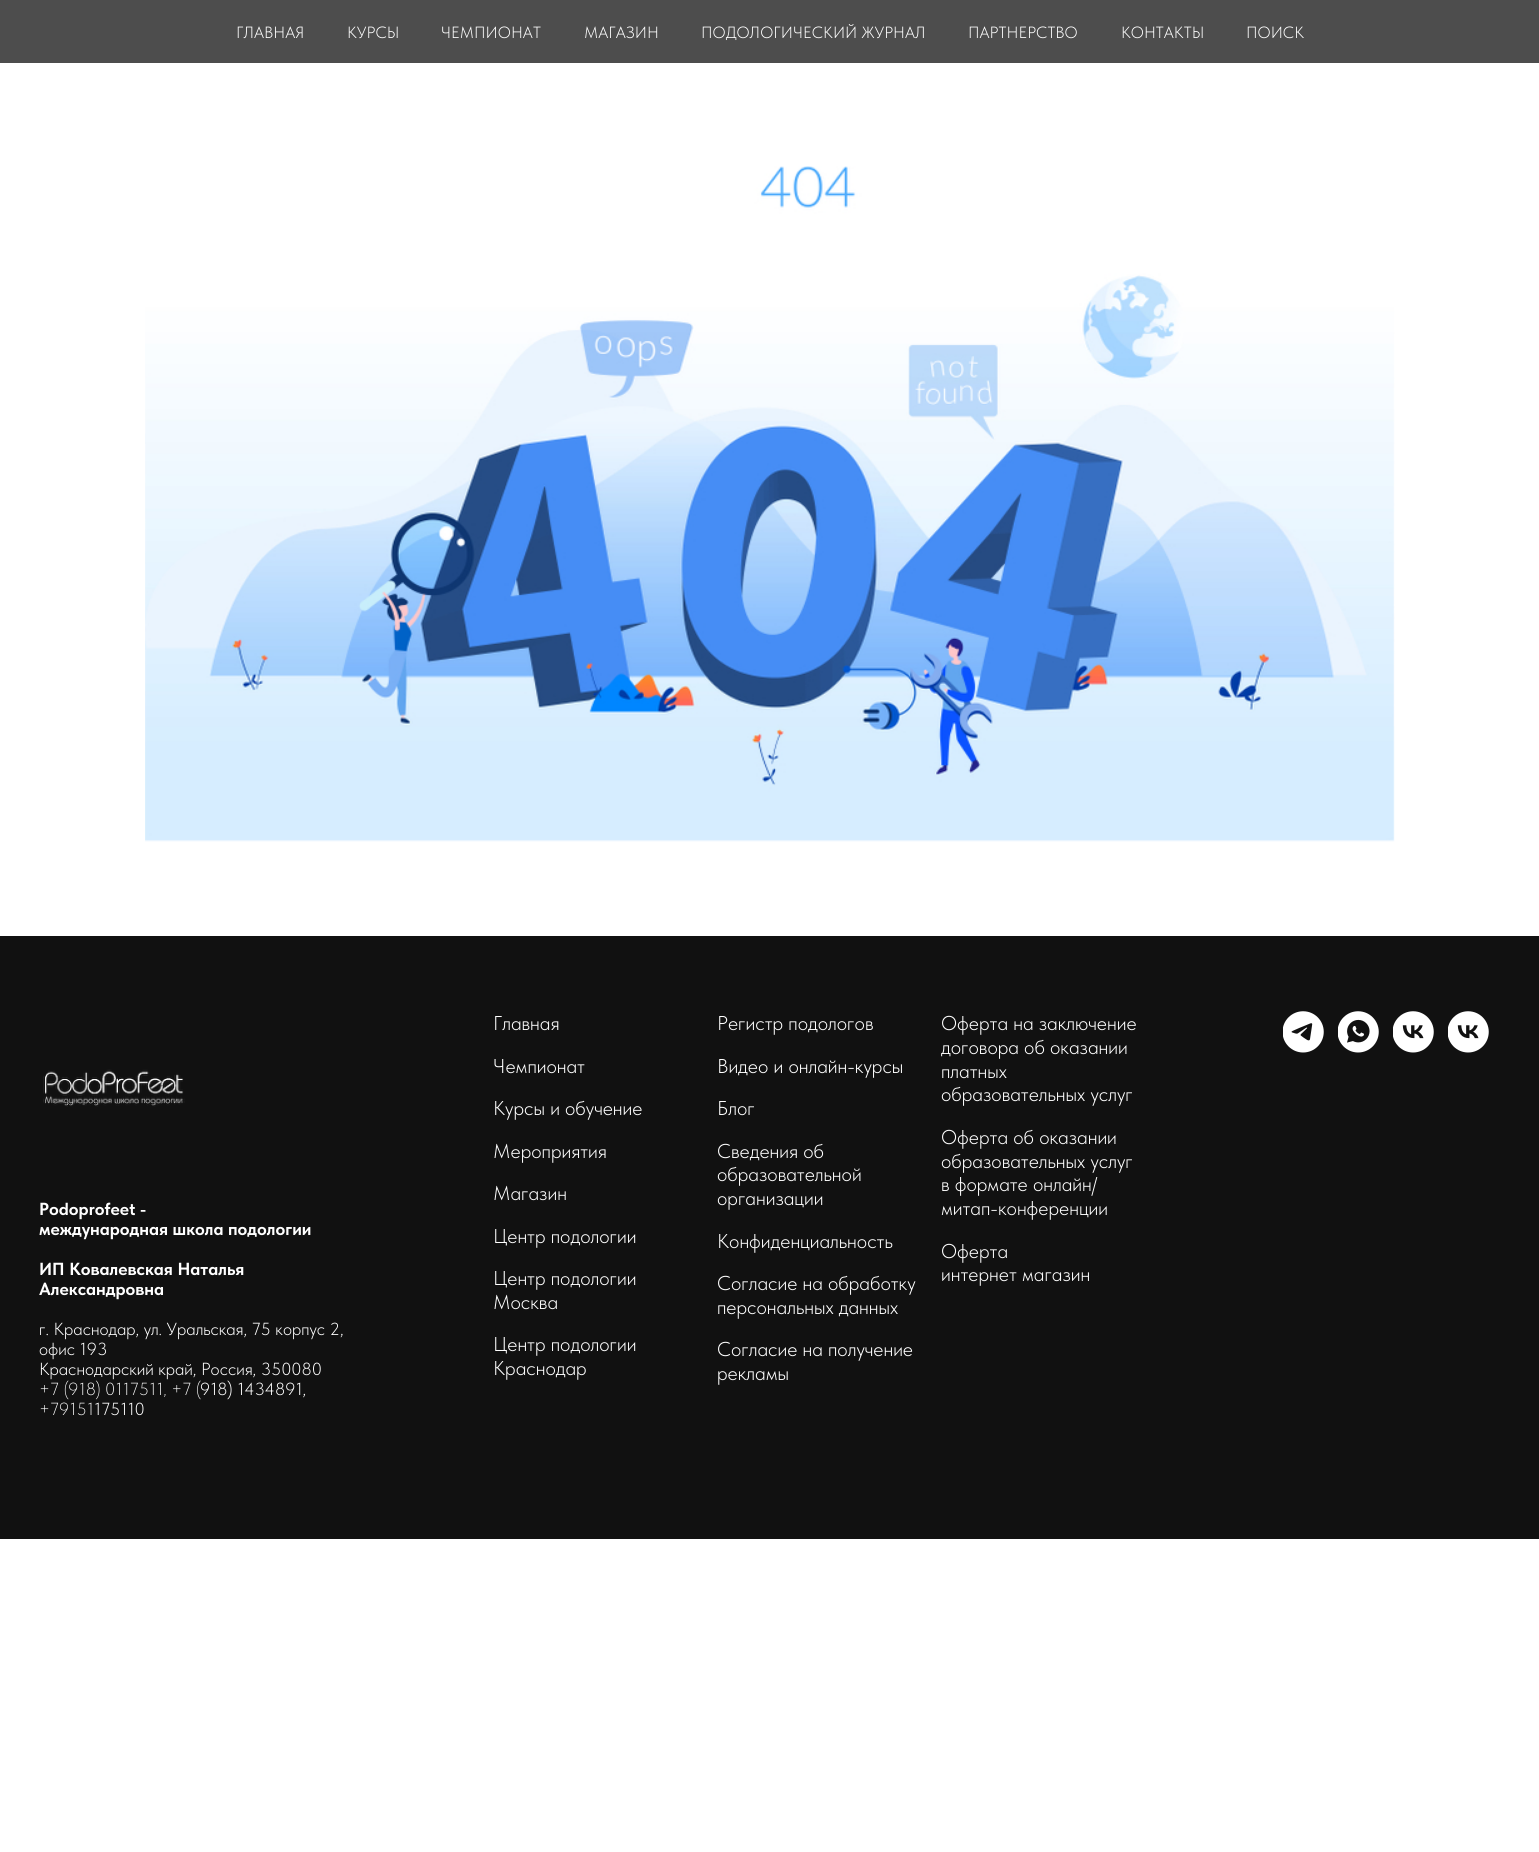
#include <cairo.h>
#include <math.h>
#include <stddef.h>


static void set_color(cairo_t *cr, unsigned color) {
    cairo_set_source_rgb(cr, (color >> 16) / 255.0, (color >> 8 & 255) / 255.0, (color & 255) / 255.0);
}

static void draw_text(cairo_t *cr, double x, double y, const char *s, const char *family, double size, int italic, int bold, unsigned color) {
    cairo_select_font_face(cr, family, italic ? CAIRO_FONT_SLANT_ITALIC : CAIRO_FONT_SLANT_NORMAL,
        bold ? CAIRO_FONT_WEIGHT_BOLD : CAIRO_FONT_WEIGHT_NORMAL);
    cairo_set_font_size(cr, size);
    set_color(cr, color);
    cairo_move_to(cr, x, y);
    cairo_show_text(cr, s);
}

static void fill_rect(cairo_t *cr, double x, double y, double w, double h, unsigned color) {
    set_color(cr, color);
    cairo_rectangle(cr, x, y, w, h);
    cairo_fill(cr);
}

static void draw_image(cairo_t *cr, const char *path, double x, double y, double w, double h) {
    cairo_surface_t *image = cairo_image_surface_create_from_png(path);
    cairo_save(cr);
    cairo_set_source_surface(cr, image, x, y);
    cairo_rectangle(cr, x, y, w, h);
    cairo_fill(cr);
    cairo_restore(cr);
    cairo_surface_destroy(image);
}

int main(void) {
    cairo_surface_t *surface = cairo_image_surface_create(CAIRO_FORMAT_RGB24, 1539, 1852);
    cairo_t *cr = cairo_create(surface);
    cairo_font_options_t *options = cairo_font_options_create();
    cairo_font_options_set_hint_metrics(options, CAIRO_HINT_METRICS_OFF);
    cairo_font_options_set_hint_style(options, CAIRO_HINT_STYLE_NONE);
    cairo_set_font_options(cr, options);
    cairo_set_miter_limit(cr, 4);
    set_color(cr, 0xFFFFFF);
    cairo_paint(cr);
    fill_rect(cr, 0, 0, 1539, 63, 0x4D4D4D);
    draw_text(cr, 236, 38, "ГЛАВНАЯ", "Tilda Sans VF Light", 16.25, 0, 0, 0xFFFFFF);
    draw_text(cr, 347, 38, "КУРСЫ", "Tilda Sans VF Light", 16.25, 0, 0, 0xFFFFFF);
    draw_text(cr, 441, 38, "ЧЕМПИОНАТ", "Tilda Sans VF Light", 16.25, 0, 0, 0xFFFFFF);
    draw_text(cr, 584, 38, "МАГАЗИН", "Tilda Sans VF Light", 16.25, 0, 0, 0xFFFFFF);
    draw_text(cr, 701, 38, "ПОДОЛОГИЧЕСКИЙ ЖУРНАЛ", "Tilda Sans VF Light", 16.25, 0, 0, 0xFFFFFF);
    draw_text(cr, 968, 38, "ПАРТНЕРСТВО", "Tilda Sans VF Light", 16.25, 0, 0, 0xFFFFFF);
    draw_text(cr, 1121, 38, "КОНТАКТЫ", "Tilda Sans VF Light", 16.25, 0, 0, 0xFFFFFF);
    draw_text(cr, 1246, 38, "ПОИСК", "Tilda Sans VF Light", 16.25, 0, 0, 0xFFFFFF);
    draw_image(cr, "assets/img1.png", 145, 166, 1250, 676);
    fill_rect(cr, 0, 936, 1539, 603, 0x111111);
    draw_image(cr, "assets/img2.png", 43, 1069, 142, 38);
    draw_text(cr, 39, 1215, "Podoprofeet -", "Tilda Sans VF", 17.5, 0, 1, 0xFFFFFF);
    draw_text(cr, 39, 1235, "международная школа подологии", "Tilda Sans VF", 17.5, 0, 1, 0xFFFFFF);
    draw_text(cr, 39, 1275, "ИП Ковалевская Наталья", "Tilda Sans VF", 17.5, 0, 1, 0xFFFFFF);
    draw_text(cr, 39, 1295, "Александровна", "Tilda Sans VF", 17.5, 0, 1, 0xFFFFFF);
    draw_text(cr, 39, 1335, "г. Краснодар, ул. Уральская, 75 корпус 2,", "Tilda Sans VF Light", 17.5, 0, 0, 0xFFFFFF);
    draw_text(cr, 39, 1355, "офис 193", "Tilda Sans VF Light", 17.5, 0, 0, 0xFFFFFF);
    draw_text(cr, 39, 1375, "Краснодарский край, Россия, 350080", "Tilda Sans VF Light", 17.5, 0, 0, 0xFFFFFF);
    draw_text(cr, 39, 1395, "+7 (918) 0117511, +7 (", "Tilda Sans VF ExtraLight", 17.5, 0, 0, 0xFFFFFF);
    draw_text(cr, 200, 1395, "918) 1434891,", "Tilda Sans VF Light", 17.5, 0, 0, 0xFFFFFF);
    draw_text(cr, 39, 1415, "+79151", "Tilda Sans VF ExtraLight", 17.5, 0, 0, 0xFFFFFF);
    draw_text(cr, 94, 1415, "175110", "Tilda Sans VF Light", 17.5, 0, 0, 0xFFFFFF);
    draw_text(cr, 493, 1030, "Главная", "Tilda Sans VF Light", 20, 0, 0, 0xFFFFFF);
    draw_text(cr, 493, 1073, "Чемпионат", "Tilda Sans VF Light", 20, 0, 0, 0xFFFFFF);
    draw_text(cr, 493, 1115, "Курсы и обучение", "Tilda Sans VF Light", 20, 0, 0, 0xFFFFFF);
    draw_text(cr, 493, 1158, "Мероприятия", "Tilda Sans VF Light", 20, 0, 0, 0xFFFFFF);
    draw_text(cr, 493, 1200, "Магазин", "Tilda Sans VF Light", 20, 0, 0, 0xFFFFFF);
    draw_text(cr, 493, 1243, "Центр подологии", "Tilda Sans VF Light", 20, 0, 0, 0xFFFFFF);
    draw_text(cr, 493, 1285, "Центр подологии", "Tilda Sans VF Light", 20, 0, 0, 0xFFFFFF);
    draw_text(cr, 493, 1309, "Москва", "Tilda Sans VF Light", 20, 0, 0, 0xFFFFFF);
    draw_text(cr, 493, 1351, "Центр подологии", "Tilda Sans VF Light", 20, 0, 0, 0xFFFFFF);
    draw_text(cr, 493, 1375, "Краснодар", "Tilda Sans VF Light", 20, 0, 0, 0xFFFFFF);
    draw_text(cr, 717, 1030, "Регистр подологов", "Tilda Sans VF Light", 20, 0, 0, 0xFFFFFF);
    draw_text(cr, 717, 1073, "Видео и онлайн-курсы", "Tilda Sans VF Light", 20, 0, 0, 0xFFFFFF);
    draw_text(cr, 717, 1115, "Блог", "Tilda Sans VF Light", 20, 0, 0, 0xFFFFFF);
    draw_text(cr, 717, 1158, "Сведения об", "Tilda Sans VF Light", 20, 0, 0, 0xFFFFFF);
    draw_text(cr, 717, 1181, "образовательной", "Tilda Sans VF Light", 20, 0, 0, 0xFFFFFF);
    draw_text(cr, 717, 1205, "организации", "Tilda Sans VF Light", 20, 0, 0, 0xFFFFFF);
    draw_text(cr, 717, 1248, "Конфиденциальность", "Tilda Sans VF Light", 20, 0, 0, 0xFFFFFF);
    draw_text(cr, 717, 1290, "Согласие на обработку", "Tilda Sans VF Light", 20, 0, 0, 0xFFFFFF);
    draw_text(cr, 717, 1314, "персональных данных", "Tilda Sans VF Light", 20, 0, 0, 0xFFFFFF);
    draw_text(cr, 717, 1356, "Согласие на получение", "Tilda Sans VF Light", 20, 0, 0, 0xFFFFFF);
    draw_text(cr, 717, 1380, "рекламы", "Tilda Sans VF Light", 20, 0, 0, 0xFFFFFF);
    draw_text(cr, 941, 1030, "Оферта на заключение", "Tilda Sans VF Light", 20, 0, 0, 0xFFFFFF);
    draw_text(cr, 941, 1054, "договора об оказании", "Tilda Sans VF Light", 20, 0, 0, 0xFFFFFF);
    draw_text(cr, 941, 1078, "платных", "Tilda Sans VF Light", 20, 0, 0, 0xFFFFFF);
    draw_text(cr, 941, 1101, "образовательных услуг", "Tilda Sans VF Light", 20, 0, 0, 0xFFFFFF);
    draw_text(cr, 941, 1144, "Оферта об оказании", "Tilda Sans VF Light", 20, 0, 0, 0xFFFFFF);
    draw_text(cr, 941, 1168, "образовательных услуг", "Tilda Sans VF Light", 20, 0, 0, 0xFFFFFF);
    draw_text(cr, 941, 1191, "в формате онлайн/", "Tilda Sans VF Light", 20, 0, 0, 0xFFFFFF);
    draw_text(cr, 941, 1215, "митап-конференции", "Tilda Sans VF Light", 20, 0, 0, 0xFFFFFF);
    draw_text(cr, 941, 1258, "Оферта", "Tilda Sans VF Light", 20, 0, 0, 0xFFFFFF);
    draw_text(cr, 941, 1281, "интернет магазин", "Tilda Sans VF Light", 20, 0, 0, 0xFFFFFF);
    draw_image(cr, "assets/img3.png", 1283, 1011, 41, 42);
    draw_image(cr, "assets/img4.png", 1338, 1011, 41, 42);
    draw_image(cr, "assets/img5.png", 1393, 1011, 41, 42);
    draw_image(cr, "assets/img5.png", 1448, 1011, 41, 42);
    cairo_surface_write_to_png(surface, "output.png");
    cairo_font_options_destroy(options);
    cairo_destroy(cr);
    cairo_surface_destroy(surface);
    return 0;
}
